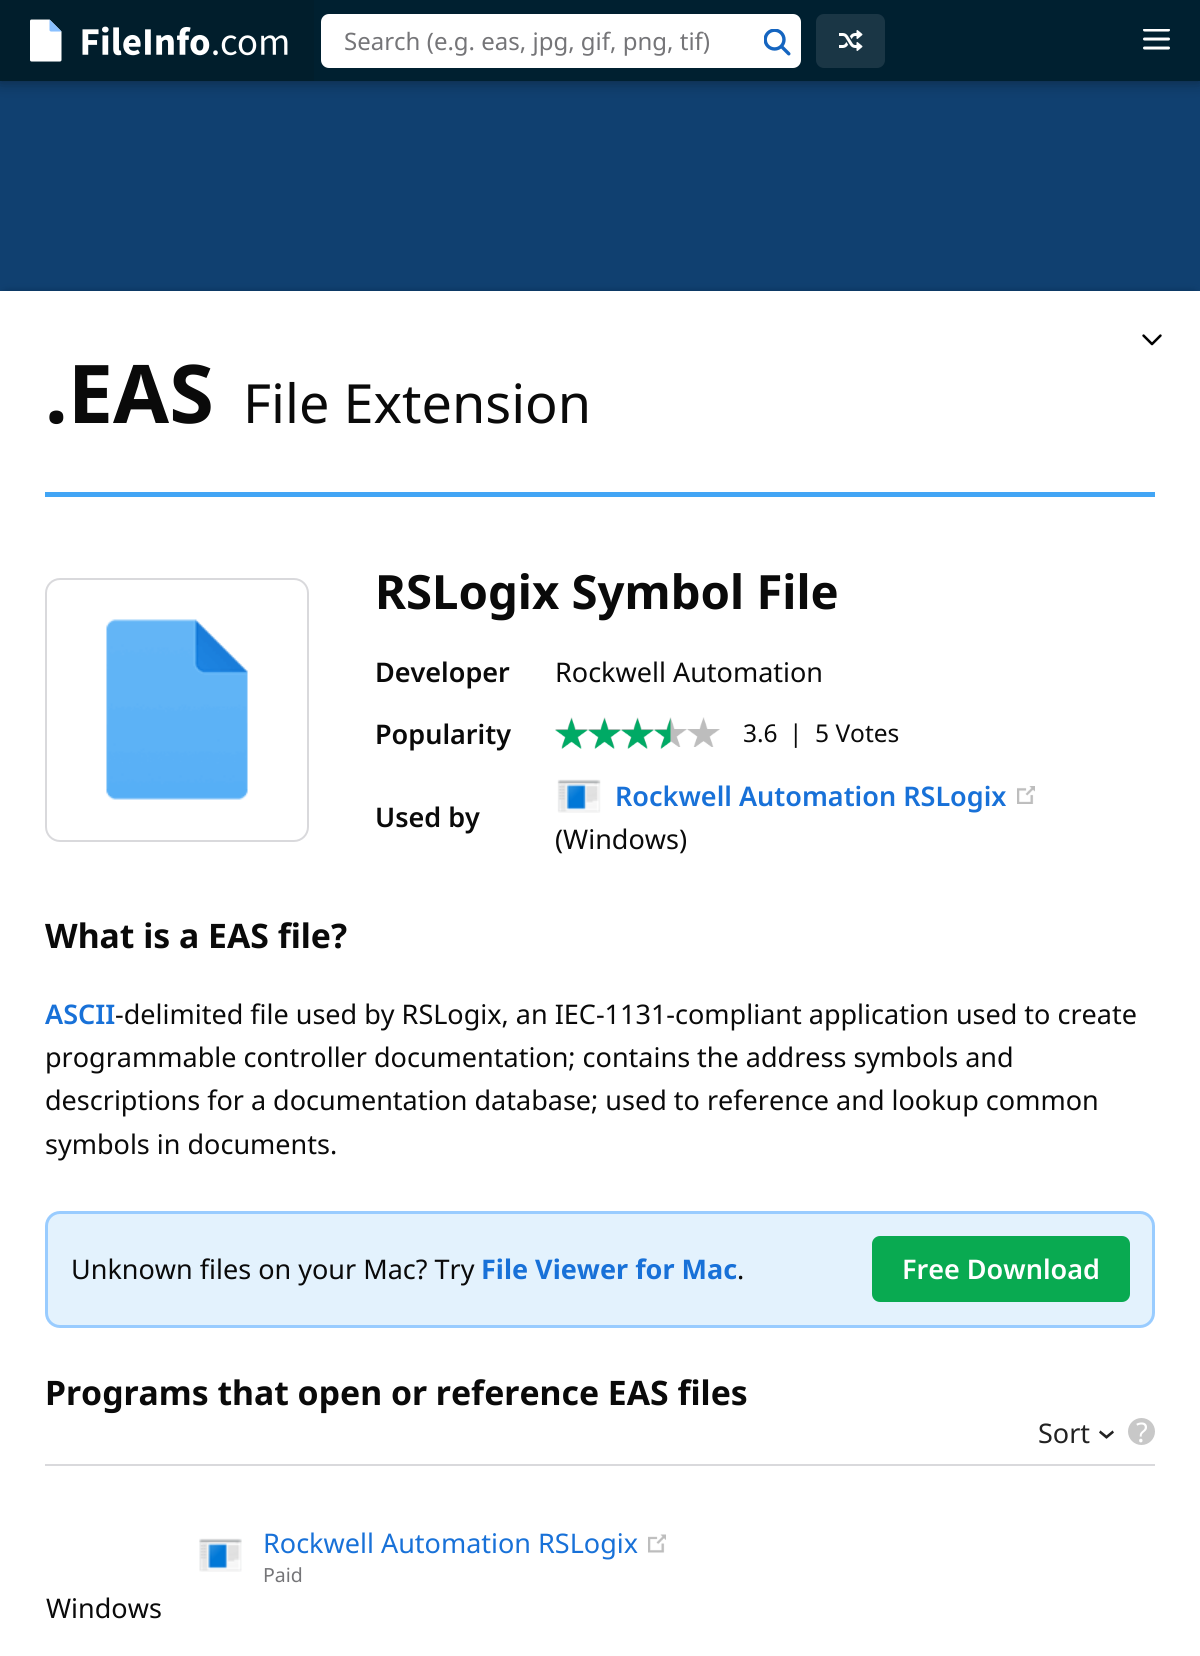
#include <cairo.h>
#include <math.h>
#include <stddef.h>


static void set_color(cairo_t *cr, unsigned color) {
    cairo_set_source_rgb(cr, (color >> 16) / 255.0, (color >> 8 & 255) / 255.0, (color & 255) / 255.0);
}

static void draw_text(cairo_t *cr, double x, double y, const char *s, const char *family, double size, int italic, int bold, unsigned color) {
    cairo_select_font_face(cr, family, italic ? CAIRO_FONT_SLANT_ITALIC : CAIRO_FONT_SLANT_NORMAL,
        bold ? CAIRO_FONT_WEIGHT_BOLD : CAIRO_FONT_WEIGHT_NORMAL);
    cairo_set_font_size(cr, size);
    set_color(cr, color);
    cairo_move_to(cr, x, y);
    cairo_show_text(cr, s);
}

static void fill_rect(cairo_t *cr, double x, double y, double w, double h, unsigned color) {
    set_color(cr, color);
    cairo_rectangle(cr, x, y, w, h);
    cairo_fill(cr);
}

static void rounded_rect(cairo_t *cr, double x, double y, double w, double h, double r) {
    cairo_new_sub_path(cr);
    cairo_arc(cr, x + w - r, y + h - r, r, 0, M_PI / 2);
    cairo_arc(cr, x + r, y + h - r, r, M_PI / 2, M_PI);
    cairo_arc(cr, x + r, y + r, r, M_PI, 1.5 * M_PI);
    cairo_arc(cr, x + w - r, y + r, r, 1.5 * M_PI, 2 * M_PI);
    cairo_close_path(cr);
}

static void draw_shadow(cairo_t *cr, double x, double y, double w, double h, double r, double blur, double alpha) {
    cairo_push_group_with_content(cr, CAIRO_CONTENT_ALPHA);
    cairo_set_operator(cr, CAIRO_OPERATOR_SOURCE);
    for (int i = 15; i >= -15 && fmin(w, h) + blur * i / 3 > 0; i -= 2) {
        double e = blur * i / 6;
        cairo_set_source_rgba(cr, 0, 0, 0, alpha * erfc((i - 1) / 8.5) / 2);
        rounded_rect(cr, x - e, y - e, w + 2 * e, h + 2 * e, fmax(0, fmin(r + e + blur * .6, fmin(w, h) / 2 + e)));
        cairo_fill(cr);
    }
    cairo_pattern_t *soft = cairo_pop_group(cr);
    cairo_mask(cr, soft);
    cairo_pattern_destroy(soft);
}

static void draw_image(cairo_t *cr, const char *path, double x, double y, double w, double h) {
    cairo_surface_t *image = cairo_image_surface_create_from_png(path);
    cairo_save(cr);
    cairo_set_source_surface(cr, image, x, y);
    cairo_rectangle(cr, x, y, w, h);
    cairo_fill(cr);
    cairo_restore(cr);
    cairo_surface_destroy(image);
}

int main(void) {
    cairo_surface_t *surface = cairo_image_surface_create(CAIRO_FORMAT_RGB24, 1200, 1656);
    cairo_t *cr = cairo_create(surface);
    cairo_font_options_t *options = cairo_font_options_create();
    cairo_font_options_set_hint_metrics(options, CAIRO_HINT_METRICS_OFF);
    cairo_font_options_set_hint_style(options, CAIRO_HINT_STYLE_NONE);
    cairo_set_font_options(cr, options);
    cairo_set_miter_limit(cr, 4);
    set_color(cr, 0x104070);
    cairo_paint(cr);
    set_color(cr, 0x0A0A0A);
    draw_shadow(cr, 0, 0, 1200, 81, 0, 7.5, 0.5);
    fill_rect(cr, 314, 0, 886, 81, 0x002030);
    fill_rect(cr, 0, 0, 314, 81, 0x011E2C);
    draw_image(cr, "assets/img1.png", 30, 19, 258, 43);
    set_color(cr, 0xFFFFFF);
    rounded_rect(cr, 321, 14, 480, 54, 8);
    cairo_fill(cr);
    draw_text(cr, 344, 50, "Search (e.g. eas, jpg, gif, png, tif)", "Noto Sans", 24, 0, 0, 0x757578);
    draw_image(cr, "assets/img2.png", 764, 29, 27, 27);
    set_color(cr, 0x1A3645);
    rounded_rect(cr, 816, 14, 69, 54, 8);
    cairo_fill(cr);
    draw_image(cr, "assets/img3.png", 839, 30, 24, 21);
    draw_image(cr, "assets/img4.png", 1143, 29, 27, 21);
    set_color(cr, 0x002244);
    draw_shadow(cr, 0, 293, 1200, 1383, 8, 4, 1);
    fill_rect(cr, 0, 291, 1200, 1365, 0xFFFFFF);
    draw_image(cr, "assets/img5.png", 1142, 334, 20, 12);
    fill_rect(cr, 45, 492, 1110, 5, 0x42A5F5);
    draw_text(cr, 45, 423, ".EAS", "Noto Sans", 81, 0, 1, 0x0A0A0A);
    draw_text(cr, 243, 423, "File Extension", "Noto Sans", 54, 0, 0, 0x0A0A0A);
    draw_image(cr, "assets/img6.png", 106, 619, 142, 181);
    rounded_rect(cr, 46, 579, 262, 262, 14);
    set_color(cr, 0xD9D9DC);
    cairo_stroke(cr);
    draw_text(cr, 375, 609, "RSLogix Symbol File", "Noto Sans", 47.25, 0, 1, 0x0A0A0A);
    draw_text(cr, 375, 682, "Developer", "Noto Sans SemiBold", 27, 0, 0, 0x0A0A0A);
    draw_text(cr, 555, 682, "Rockwell Automation", "Noto Sans", 27, 0, 0, 0x0A0A0A);
    draw_text(cr, 375, 744, "Popularity", "Noto Sans SemiBold", 27, 0, 0, 0x0A0A0A);
    draw_image(cr, "assets/img7.png", 555, 717, 165, 30);
    draw_image(cr, "assets/img8.png", 555, 718, 116, 31);
    draw_text(cr, 743, 742, "3.6", "Noto Sans", 24.5, 0, 0, 0x0A0A0A);
    draw_text(cr, 789, 742, "|", "Noto Sans", 24.5, 0, 0, 0x0A0A0A);
    draw_text(cr, 815, 742, "5 Votes", "Noto Sans", 24.5, 0, 0, 0x0A0A0A);
    draw_text(cr, 375, 827, "Used by", "Noto Sans SemiBold", 27, 0, 0, 0x0A0A0A);
    draw_image(cr, "assets/img9.png", 557, 779, 44, 34);
    draw_text(cr, 615, 806, "Rockwell Automation RSLogix", "Noto Sans SemiBold", 27, 0, 0, 0x1871D8);
    draw_image(cr, "assets/img10.png", 1017, 786, 18, 18);
    draw_text(cr, 555, 849, "(Windows)", "Noto Sans", 27, 0, 0, 0x0A0A0A);
    draw_text(cr, 45, 948, "What is a EAS file?", "Noto Sans", 33.75, 0, 1, 0x0A0A0A);
    draw_text(cr, 45, 1024, "ASCII", "Noto Sans SemiBold", 27, 0, 0, 0x1871D8);
    draw_text(cr, 115, 1024, "-delimited file used by RSLogix, an IEC-1131-compliant application used to create", "Noto Sans", 27, 0, 0, 0x0A0A0A);
    draw_text(cr, 45, 1067, "programmable controller documentation; contains the address symbols and", "Noto Sans", 27, 0, 0, 0x0A0A0A);
    draw_text(cr, 45, 1110, "descriptions for a documentation database; used to reference and lookup common", "Noto Sans", 27, 0, 0, 0x0A0A0A);
    draw_text(cr, 45, 1154, "symbols in documents.", "Noto Sans", 27, 0, 0, 0x0A0A0A);
    set_color(cr, 0xE3F2FD);
    rounded_rect(cr, 46.5, 1212.5, 1107, 114, 13.5);
    cairo_fill_preserve(cr);
    set_color(cr, 0x99CCFF);
    cairo_set_line_width(cr, 3);
    cairo_stroke(cr);
    draw_text(cr, 71, 1279, "Unknown files on your Mac? Try", "Noto Sans", 27, 0, 0, 0x0A0A0A);
    draw_text(cr, 481, 1279, "File Viewer for Mac", "Noto Sans", 27, 0, 1, 0x1871D8);
    draw_text(cr, 737, 1279, ".", "Noto Sans", 27, 0, 0, 0x0A0A0A);
    set_color(cr, 0x09AA51);
    rounded_rect(cr, 872, 1236, 258, 66, 8);
    cairo_fill(cr);
    draw_text(cr, 902, 1279, "Free Download", "Noto Sans SemiBold", 27, 0, 0, 0xFFFFFF);
    draw_text(cr, 45, 1405, "Programs that open or reference EAS files", "Noto Sans", 33.75, 0, 1, 0x0A0A0A);
    draw_text(cr, 1038, 1443, "Sort", "Noto Sans", 27, 0, 0, 0x222222);
    cairo_save(cr);
    cairo_translate(cr, 1097, 1429);
    cairo_rotate(cr, 90 * M_PI / 180);
    draw_text(cr, 0, 0, "›", "Noto Sans", 36, 0, 0, 0x222222);
    cairo_restore(cr);
    set_color(cr, 0xC8C8C8);
    cairo_new_path(cr);
    cairo_arc(cr, 1141.5, 1431.5, 13.5, 0, 2 * M_PI);
    cairo_fill(cr);
    draw_text(cr, 1136, 1442, "?", "Noto Sans", 27, 0, 0, 0xFFFFFF);
    fill_rect(cr, 45, 1464, 1110, 2, 0xD9D9DC);
    draw_image(cr, "assets/img11.png", 199, 1538, 43, 34);
    draw_text(cr, 263, 1553, "Rockwell Automation RSLogix", "Noto Sans", 27, 0, 0, 0x1871D8);
    draw_image(cr, "assets/img12.png", 648, 1534, 18, 19);
    draw_text(cr, 263, 1582, "Paid", "Noto Sans", 19.5, 0, 0, 0x757578);
    draw_text(cr, 46, 1618, "Windows", "Noto Sans", 27, 0, 0, 0x0A0A0A);
    cairo_surface_write_to_png(surface, "output.png");
    cairo_font_options_destroy(options);
    cairo_destroy(cr);
    cairo_surface_destroy(surface);
    return 0;
}
